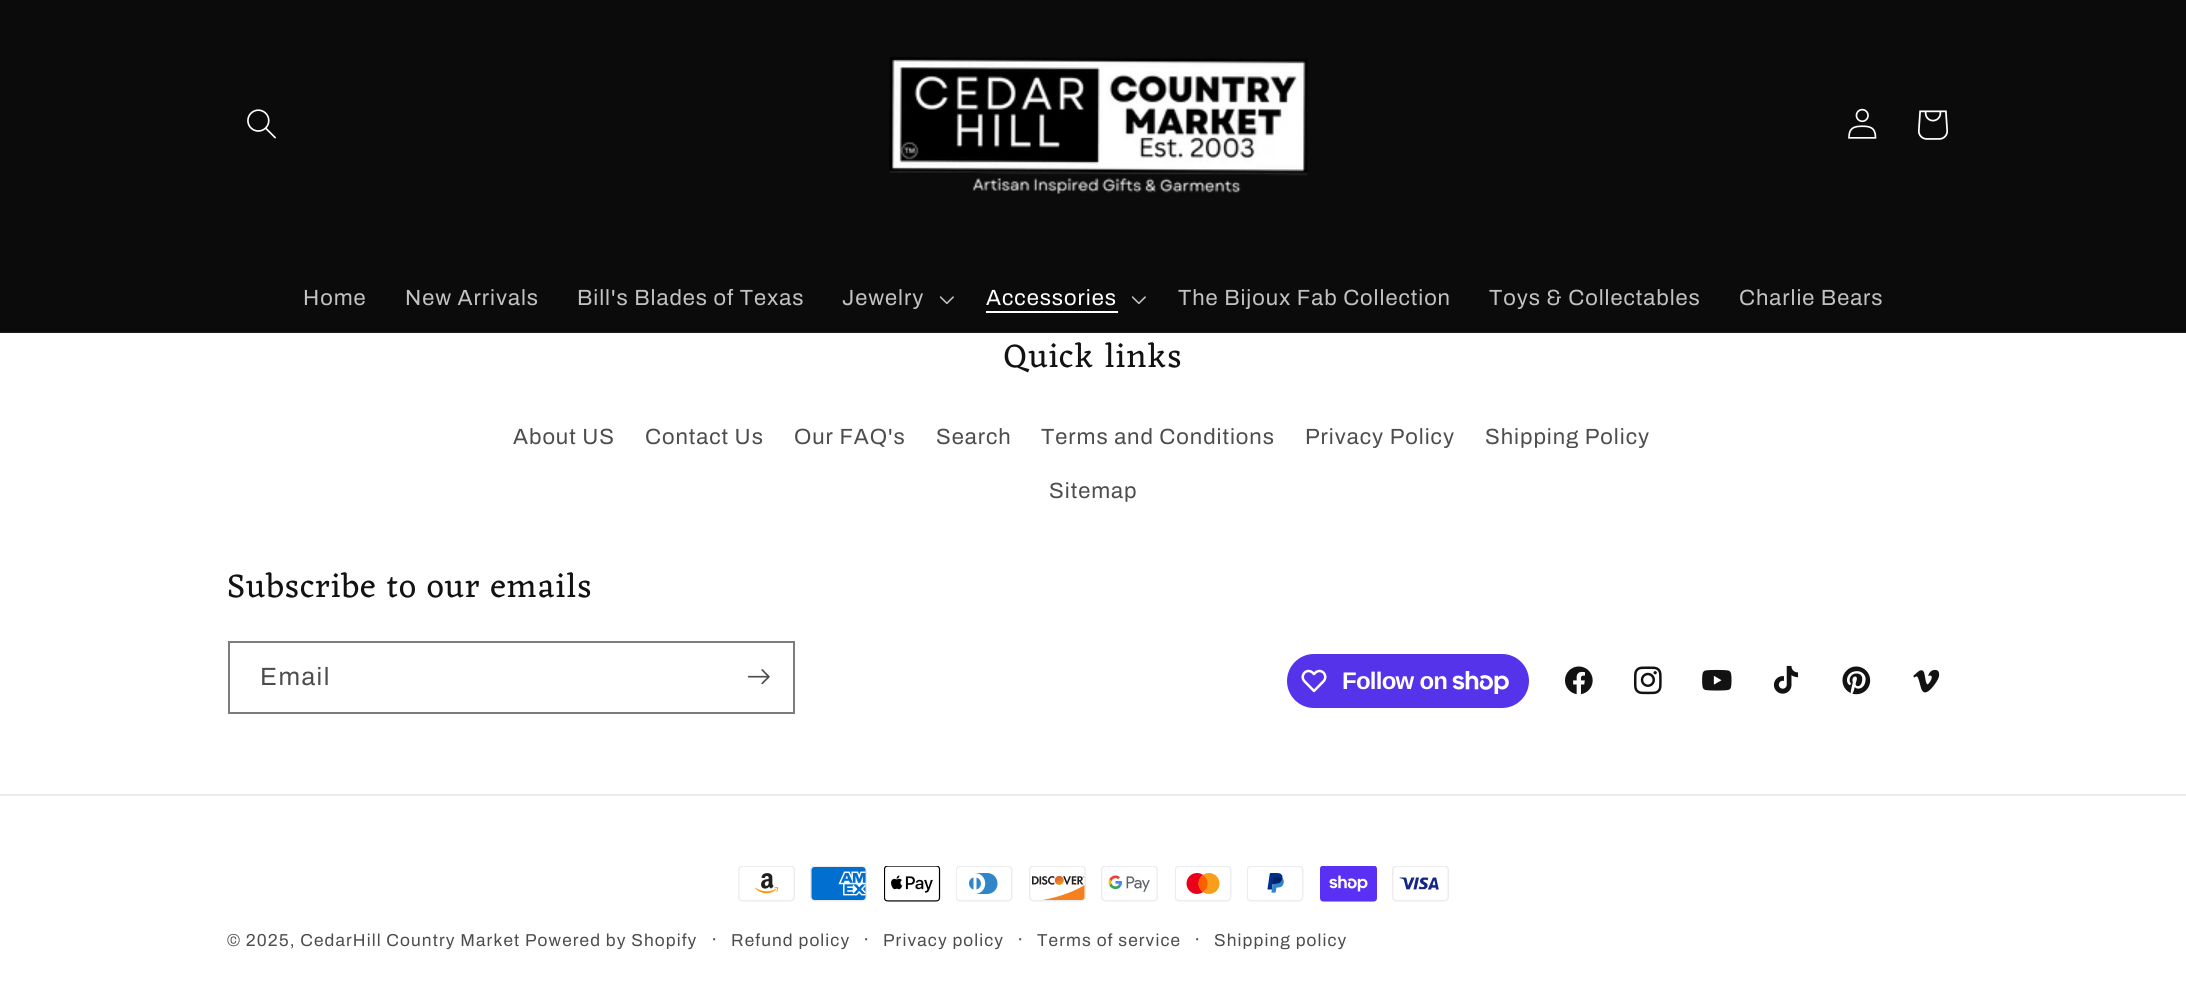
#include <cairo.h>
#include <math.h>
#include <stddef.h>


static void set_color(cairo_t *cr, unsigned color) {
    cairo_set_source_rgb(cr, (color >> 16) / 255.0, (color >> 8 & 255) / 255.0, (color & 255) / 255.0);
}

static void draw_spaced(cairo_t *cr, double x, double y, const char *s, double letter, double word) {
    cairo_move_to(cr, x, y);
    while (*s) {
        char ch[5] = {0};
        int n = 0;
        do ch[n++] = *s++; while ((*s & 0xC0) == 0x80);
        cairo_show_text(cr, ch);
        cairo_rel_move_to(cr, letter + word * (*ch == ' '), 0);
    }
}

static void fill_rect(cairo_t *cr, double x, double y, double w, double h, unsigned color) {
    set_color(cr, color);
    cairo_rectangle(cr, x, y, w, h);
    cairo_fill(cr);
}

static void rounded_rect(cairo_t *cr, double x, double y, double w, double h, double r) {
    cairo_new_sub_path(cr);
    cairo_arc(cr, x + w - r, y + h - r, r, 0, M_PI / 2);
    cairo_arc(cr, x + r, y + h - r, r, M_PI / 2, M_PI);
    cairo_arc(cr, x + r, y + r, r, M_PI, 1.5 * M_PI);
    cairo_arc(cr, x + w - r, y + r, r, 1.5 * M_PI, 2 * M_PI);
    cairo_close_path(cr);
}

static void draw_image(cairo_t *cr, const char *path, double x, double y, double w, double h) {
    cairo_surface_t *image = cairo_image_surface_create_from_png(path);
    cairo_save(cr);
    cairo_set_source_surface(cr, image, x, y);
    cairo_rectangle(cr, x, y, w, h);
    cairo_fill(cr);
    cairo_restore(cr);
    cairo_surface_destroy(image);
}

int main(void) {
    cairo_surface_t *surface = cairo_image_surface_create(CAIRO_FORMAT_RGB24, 2186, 981);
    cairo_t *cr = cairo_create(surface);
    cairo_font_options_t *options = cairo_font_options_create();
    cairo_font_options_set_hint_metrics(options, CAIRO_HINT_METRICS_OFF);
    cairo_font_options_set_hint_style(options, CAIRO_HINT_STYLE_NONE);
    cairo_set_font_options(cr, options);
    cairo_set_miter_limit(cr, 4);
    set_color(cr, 0xFFFFFF);
    cairo_paint(cr);
    fill_rect(cr, 0, 0, 2186, 332, 0x0B0B0B);
    fill_rect(cr, 0, 332, 2186, 1, 0x1F1F1F);
    draw_image(cr, "assets/img1.png", 247, 109, 29, 30);
    draw_image(cr, "assets/img2.png", 889, 57, 419, 138);
    draw_image(cr, "assets/img3.png", 1848, 108, 29, 31);
    draw_image(cr, "assets/img4.png", 1918, 110, 31, 30);
    cairo_select_font_face(cr, "Archivo", CAIRO_FONT_SLANT_NORMAL, CAIRO_FONT_WEIGHT_NORMAL);
    cairo_set_font_size(cr, 22);
    set_color(cr, 0xC2C2C2);
    draw_spaced(cr, 303, 305, "Home", 0.95, 0);
    draw_spaced(cr, 405, 305, "New Arrivals", 0.95, 0);
    draw_spaced(cr, 577, 305, "Bill's Blades of Texas", 0.95, 0);
    draw_spaced(cr, 842, 305, "Jewelry", 0.95, 0);
    draw_image(cr, "assets/img5.png", 939, 296, 15, 9);
    set_color(cr, 0xFFFFFF);
    draw_spaced(cr, 986, 305, "Accessories", 0.95, 0);
    fill_rect(cr, 986, 311, 132, 2, 0xFFFFFF);
    draw_image(cr, "assets/img5.png", 1131, 296, 15, 9);
    set_color(cr, 0xC2C2C2);
    draw_spaced(cr, 1178, 305, "The Bijoux Fab Collection", 0.95, 0);
    draw_spaced(cr, 1489, 305, "Toys & Collectables", 0.95, 0);
    draw_spaced(cr, 1739, 305, "Charlie Bears", 0.95, 0);
    cairo_select_font_face(cr, "Eczar", CAIRO_FONT_SLANT_NORMAL, CAIRO_FONT_WEIGHT_NORMAL);
    cairo_set_font_size(cr, 33.75);
    set_color(cr, 0x121212);
    draw_spaced(cr, 1004, 367, "Quick links", 1.1, 0);
    cairo_select_font_face(cr, "Archivo", CAIRO_FONT_SLANT_NORMAL, CAIRO_FONT_WEIGHT_NORMAL);
    cairo_set_font_size(cr, 22);
    set_color(cr, 0x4D4D4D);
    draw_spaced(cr, 513, 444, "About US", 0.95, 0);
    draw_spaced(cr, 645, 444, "Contact Us", 0.95, 0);
    draw_spaced(cr, 794, 444, "Our FAQ's", 0.95, 0);
    draw_spaced(cr, 936, 444, "Search", 0.95, 0);
    draw_spaced(cr, 1041, 444, "Terms and Conditions", 0.95, 0);
    draw_spaced(cr, 1305, 444, "Privacy Policy", 0.95, 0);
    draw_spaced(cr, 1485, 444, "Shipping Policy", 0.95, 0);
    draw_spaced(cr, 1049, 498, "Sitemap", 0.95, 0);
    cairo_select_font_face(cr, "Eczar", CAIRO_FONT_SLANT_NORMAL, CAIRO_FONT_WEIGHT_NORMAL);
    cairo_set_font_size(cr, 33.75);
    set_color(cr, 0x121212);
    draw_spaced(cr, 227, 597, "Subscribe to our emails", 1.1, 0);
    cairo_rectangle(cr, 229, 642, 565, 71);
    set_color(cr, 0x7D7D7D);
    cairo_stroke(cr);
    cairo_select_font_face(cr, "Archivo", CAIRO_FONT_SLANT_NORMAL, CAIRO_FONT_WEIGHT_NORMAL);
    cairo_set_font_size(cr, 25);
    set_color(cr, 0x4D4D4D);
    draw_spaced(cr, 260, 685, "Email", 1.5, 0);
    draw_image(cr, "assets/img6.png", 747, 669, 23, 16);
    set_color(cr, 0x5433EB);
    rounded_rect(cr, 1287, 654, 242, 54, 27);
    cairo_fill(cr);
    draw_image(cr, "assets/img7.png", 1301, 669, 26, 24);
    cairo_select_font_face(cr, "Liberation Sans", CAIRO_FONT_SLANT_NORMAL, CAIRO_FONT_WEIGHT_BOLD);
    cairo_set_font_size(cr, 24);
    set_color(cr, 0xFFFFFF);
    draw_spaced(cr, 1342, 689, "Follow on", -0.75, 0);
    draw_image(cr, "assets/img8.png", 1452, 671, 57, 23);
    draw_image(cr, "assets/img9.png", 1565, 666, 28, 29);
    draw_image(cr, "assets/img10.png", 1633, 666, 29, 29);
    draw_image(cr, "assets/img11.png", 1702, 669, 30, 22);
    draw_image(cr, "assets/img12.png", 1773, 665, 26, 29);
    draw_image(cr, "assets/img13.png", 1842, 666, 29, 29);
    draw_image(cr, "assets/img14.png", 1913, 669, 27, 24);
    fill_rect(cr, 0, 794, 2186, 2, 0xECECEC);
    draw_image(cr, "assets/img15.png", 738, 866, 57, 36);
    draw_image(cr, "assets/img16.png", 810, 866, 57, 36);
    draw_image(cr, "assets/img17.png", 884, 866, 57, 36);
    draw_image(cr, "assets/img18.png", 956, 866, 57, 36);
    draw_image(cr, "assets/img19.png", 1029, 866, 57, 36);
    draw_image(cr, "assets/img20.png", 1101, 866, 57, 36);
    draw_image(cr, "assets/img21.png", 1175, 866, 57, 36);
    draw_image(cr, "assets/img22.png", 1247, 866, 57, 36);
    draw_image(cr, "assets/img23.png", 1320, 866, 57, 36);
    draw_image(cr, "assets/img24.png", 1392, 866, 57, 36);
    cairo_select_font_face(cr, "Archivo", CAIRO_FONT_SLANT_NORMAL, CAIRO_FONT_WEIGHT_NORMAL);
    cairo_set_font_size(cr, 17.3);
    set_color(cr, 0x4D4D4D);
    draw_spaced(cr, 227, 946, "© 2025, CedarHill Country Market Powered by Shopify", 1.1, 0);
    cairo_set_font_size(cr, 19);
    draw_spaced(cr, 711, 946, "·", 1.1, 0);
    cairo_set_font_size(cr, 17.3);
    draw_spaced(cr, 731, 946, "Refund policy", 1.1, 0);
    cairo_set_font_size(cr, 19);
    draw_spaced(cr, 863, 946, "·", 1.1, 0);
    cairo_set_font_size(cr, 17.3);
    draw_spaced(cr, 883, 946, "Privacy policy", 1.1, 0);
    cairo_set_font_size(cr, 19);
    draw_spaced(cr, 1017, 946, "·", 1.1, 0);
    cairo_set_font_size(cr, 17.3);
    draw_spaced(cr, 1037, 946, "Terms of service", 1.1, 0);
    cairo_set_font_size(cr, 19);
    draw_spaced(cr, 1194, 946, "·", 1.1, 0);
    cairo_set_font_size(cr, 17.3);
    draw_spaced(cr, 1214, 946, "Shipping policy", 1.1, 0);
    cairo_surface_write_to_png(surface, "output.png");
    cairo_font_options_destroy(options);
    cairo_destroy(cr);
    cairo_surface_destroy(surface);
    return 0;
}
